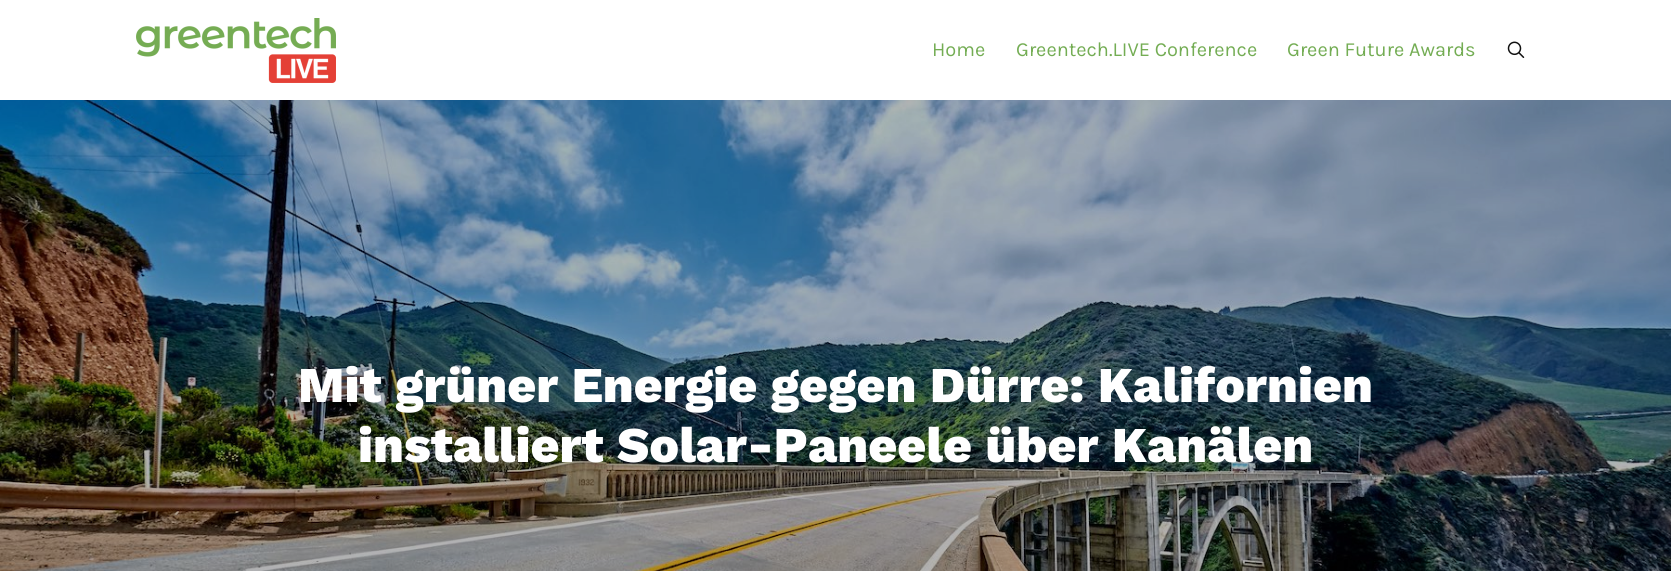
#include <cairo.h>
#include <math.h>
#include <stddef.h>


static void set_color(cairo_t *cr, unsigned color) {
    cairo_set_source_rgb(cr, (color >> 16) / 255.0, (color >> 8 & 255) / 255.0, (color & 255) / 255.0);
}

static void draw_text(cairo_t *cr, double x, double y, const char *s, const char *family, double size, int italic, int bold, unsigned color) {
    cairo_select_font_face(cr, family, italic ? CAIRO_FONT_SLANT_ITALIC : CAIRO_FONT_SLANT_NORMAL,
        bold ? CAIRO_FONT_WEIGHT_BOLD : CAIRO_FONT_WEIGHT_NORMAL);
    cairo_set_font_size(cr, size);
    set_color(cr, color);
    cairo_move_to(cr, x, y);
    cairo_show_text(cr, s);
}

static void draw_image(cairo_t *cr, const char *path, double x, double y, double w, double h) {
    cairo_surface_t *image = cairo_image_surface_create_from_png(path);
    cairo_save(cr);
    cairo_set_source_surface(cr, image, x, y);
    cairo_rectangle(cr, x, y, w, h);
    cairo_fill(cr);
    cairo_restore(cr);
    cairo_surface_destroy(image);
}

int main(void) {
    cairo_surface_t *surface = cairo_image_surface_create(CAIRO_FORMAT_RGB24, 1671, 571);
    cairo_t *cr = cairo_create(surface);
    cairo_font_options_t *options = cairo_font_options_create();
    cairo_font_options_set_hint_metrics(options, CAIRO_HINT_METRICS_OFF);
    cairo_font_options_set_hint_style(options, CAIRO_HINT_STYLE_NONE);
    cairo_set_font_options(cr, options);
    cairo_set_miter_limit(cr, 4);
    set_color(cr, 0xFFFFFF);
    cairo_paint(cr);
    draw_image(cr, "assets/img1.png", 136, 18, 200, 65);
    draw_text(cr, 932, 56, "Home", "Karla", 20, 0, 0, 0x74AD54);
    draw_text(cr, 1016, 56, "Greentech.LIVE Conference", "Karla", 20, 0, 0, 0x74AD54);
    draw_text(cr, 1287, 56, "Green Future Awards", "Karla", 20, 0, 0, 0x74AD54);
    draw_image(cr, "assets/img2.png", 1507, 41, 18, 17);
    draw_image(cr, "assets/img3.png", 0, 100, 1671, 471);
    draw_text(cr, 298, 402, "Mit grüner Energie gegen Dürre: Kalifornien", "Work Sans ExtraBold", 50, 0, 0, 0xFFFFFF);
    draw_text(cr, 358, 462, "installiert Solar-Paneele über Kanälen", "Work Sans ExtraBold", 50, 0, 0, 0xFFFFFF);
    cairo_surface_write_to_png(surface, "output.png");
    cairo_font_options_destroy(options);
    cairo_destroy(cr);
    cairo_surface_destroy(surface);
    return 0;
}
